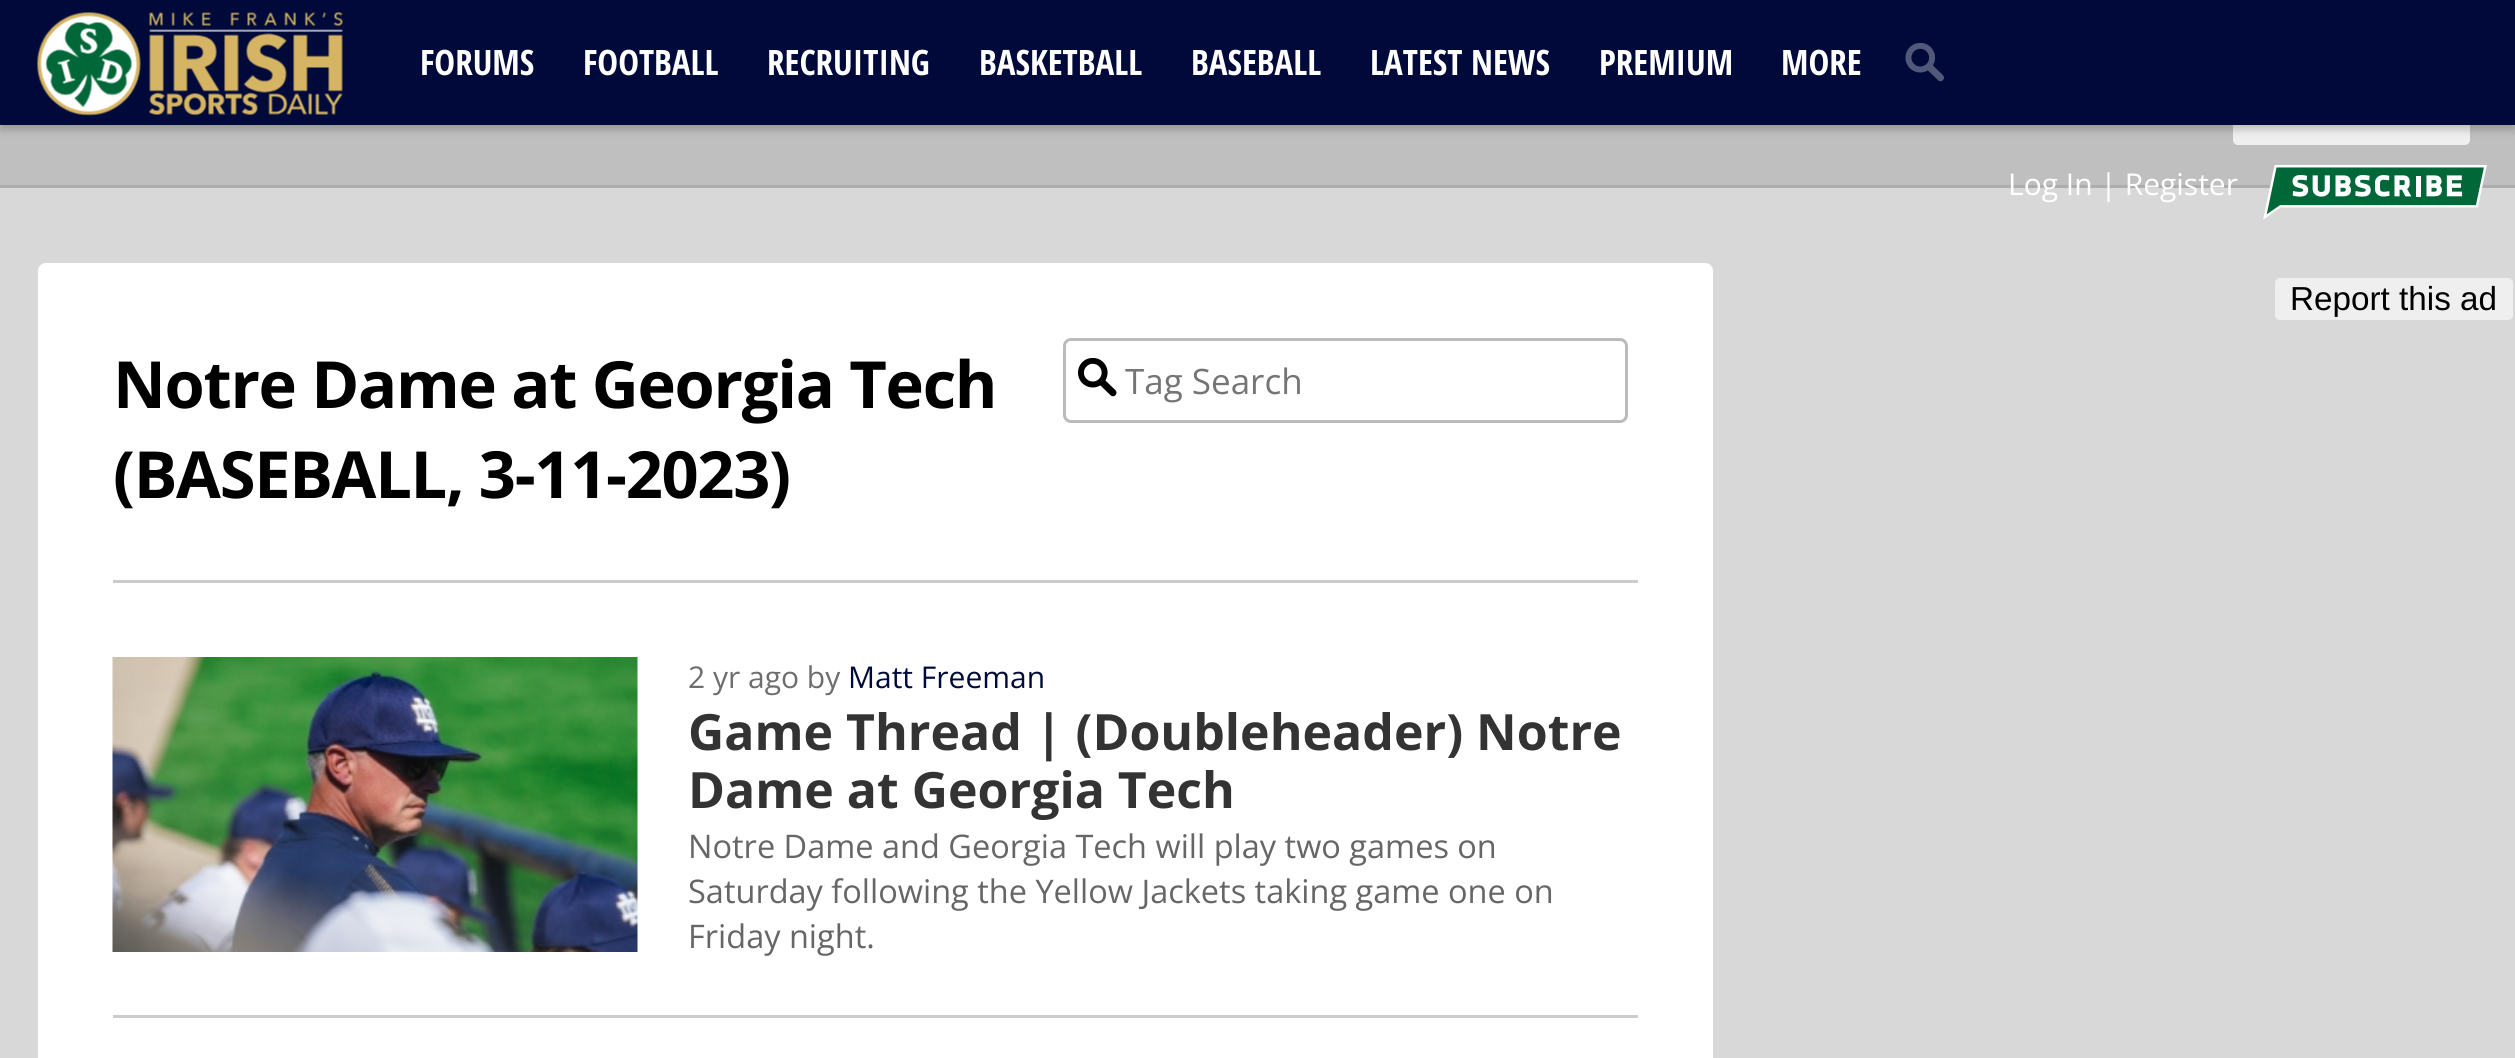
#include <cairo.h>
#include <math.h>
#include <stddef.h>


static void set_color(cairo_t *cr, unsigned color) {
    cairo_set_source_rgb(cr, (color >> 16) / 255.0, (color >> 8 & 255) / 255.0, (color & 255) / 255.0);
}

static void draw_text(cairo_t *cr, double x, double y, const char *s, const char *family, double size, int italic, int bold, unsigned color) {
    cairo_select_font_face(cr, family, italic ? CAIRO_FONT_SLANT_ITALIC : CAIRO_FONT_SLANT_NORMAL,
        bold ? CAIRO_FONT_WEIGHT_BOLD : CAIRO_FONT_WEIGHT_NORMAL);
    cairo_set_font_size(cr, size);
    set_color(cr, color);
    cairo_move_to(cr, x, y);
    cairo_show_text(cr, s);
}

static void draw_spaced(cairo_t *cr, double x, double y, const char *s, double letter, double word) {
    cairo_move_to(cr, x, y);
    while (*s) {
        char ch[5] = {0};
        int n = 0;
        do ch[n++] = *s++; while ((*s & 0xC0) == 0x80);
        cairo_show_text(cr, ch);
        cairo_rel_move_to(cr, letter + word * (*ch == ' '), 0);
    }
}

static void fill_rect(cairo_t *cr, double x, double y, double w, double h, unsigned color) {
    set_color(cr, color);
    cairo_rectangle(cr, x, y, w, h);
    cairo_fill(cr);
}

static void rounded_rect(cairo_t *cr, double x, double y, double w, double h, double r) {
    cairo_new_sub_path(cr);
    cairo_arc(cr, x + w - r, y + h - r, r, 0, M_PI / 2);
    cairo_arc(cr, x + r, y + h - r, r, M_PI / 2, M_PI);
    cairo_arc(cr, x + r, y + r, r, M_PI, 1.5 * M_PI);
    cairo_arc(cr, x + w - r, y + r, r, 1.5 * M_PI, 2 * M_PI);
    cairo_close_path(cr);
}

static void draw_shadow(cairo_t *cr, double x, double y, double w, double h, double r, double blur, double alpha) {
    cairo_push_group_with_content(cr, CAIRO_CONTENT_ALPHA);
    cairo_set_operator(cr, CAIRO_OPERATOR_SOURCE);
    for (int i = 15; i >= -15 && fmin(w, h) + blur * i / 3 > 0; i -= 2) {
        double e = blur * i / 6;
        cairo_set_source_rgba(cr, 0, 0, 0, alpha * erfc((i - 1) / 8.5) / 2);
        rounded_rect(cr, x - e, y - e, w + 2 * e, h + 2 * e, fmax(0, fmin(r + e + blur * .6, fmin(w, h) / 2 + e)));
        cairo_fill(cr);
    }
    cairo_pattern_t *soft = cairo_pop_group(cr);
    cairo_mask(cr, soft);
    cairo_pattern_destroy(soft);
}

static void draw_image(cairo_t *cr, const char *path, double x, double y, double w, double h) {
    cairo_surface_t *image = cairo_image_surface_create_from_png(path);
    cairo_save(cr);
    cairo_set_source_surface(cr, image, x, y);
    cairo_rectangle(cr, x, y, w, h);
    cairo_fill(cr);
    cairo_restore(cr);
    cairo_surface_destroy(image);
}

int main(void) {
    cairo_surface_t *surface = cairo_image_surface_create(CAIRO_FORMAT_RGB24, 2515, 1058);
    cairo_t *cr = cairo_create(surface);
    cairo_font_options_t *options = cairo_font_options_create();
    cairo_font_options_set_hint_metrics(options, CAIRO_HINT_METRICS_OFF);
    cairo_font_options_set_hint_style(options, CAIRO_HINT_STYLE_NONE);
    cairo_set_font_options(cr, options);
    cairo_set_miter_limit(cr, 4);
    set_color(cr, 0xBFBFBF);
    cairo_paint(cr);
    set_color(cr, 0xEFEFEF);
    rounded_rect(cr, 2233, 103, 237, 42, 5);
    cairo_fill(cr);
    set_color(cr, 0x000000);
    draw_shadow(cr, 0, 5, 2515, 125, 0, 4, 0.2);
    fill_rect(cr, 0, 0, 2515, 125, 0x000A3A);
    draw_image(cr, "assets/img1.png", 37, 12, 306, 104);
    draw_text(cr, 420, 75, "FORUMS", "Open Sans Condensed", 35, 0, 1, 0xFFFFFF);
    draw_text(cr, 583, 75, "FOOTBALL", "Open Sans Condensed", 35, 0, 1, 0xFFFFFF);
    draw_text(cr, 767, 75, "RECRUITING", "Open Sans Condensed", 35, 0, 1, 0xFFFFFF);
    draw_text(cr, 979, 75, "BASKETBALL", "Open Sans Condensed", 35, 0, 1, 0xFFFFFF);
    draw_text(cr, 1191, 75, "BASEBALL", "Open Sans Condensed", 35, 0, 1, 0xFFFFFF);
    draw_text(cr, 1370, 75, "LATEST NEWS", "Open Sans Condensed", 35, 0, 1, 0xFFFFFF);
    draw_text(cr, 1599, 75, "PREMIUM", "Open Sans Condensed", 35, 0, 1, 0xFFFFFF);
    draw_text(cr, 1781, 75, "MORE", "Open Sans Condensed", 35, 0, 1, 0xFFFFFF);
    draw_image(cr, "assets/img2.png", 1905, 43, 39, 39);
    fill_rect(cr, 0, 185, 2515, 3, 0xADADAD);
    fill_rect(cr, 0, 188, 2515, 870, 0xD8D8D8);
    draw_text(cr, 2008, 195, "Log In | Register", "Open Sans", 30, 0, 0, 0xFFFFFF);
    draw_image(cr, "assets/img3.png", 2263, 165, 224, 55);
    set_color(cr, 0xEFEFEF);
    rounded_rect(cr, 2275, 278, 238, 42, 5);
    cairo_fill(cr);
    draw_text(cr, 2290, 310, "Report this ad", "Liberation Sans", 33.25, 0, 0, 0x000000);
    set_color(cr, 0xFFFFFF);
    cairo_new_path(cr);
    cairo_move_to(cr, 46, 263);
    cairo_line_to(cr, 1705, 263);
    cairo_curve_to(cr, 1709.5, 263, 1713, 266.5, 1713, 271);
    cairo_line_to(cr, 1713, 583);
    cairo_line_to(cr, 38, 583);
    cairo_line_to(cr, 38, 271);
    cairo_curve_to(cr, 38, 266.5, 41.5, 263, 46, 263);
    cairo_close_path(cr);
    cairo_fill(cr);
    cairo_select_font_face(cr, "Open Sans", CAIRO_FONT_SLANT_NORMAL, CAIRO_FONT_WEIGHT_BOLD);
    cairo_set_font_size(cr, 65);
    set_color(cr, 0x000000);
    draw_spaced(cr, 113, 408, "Notre Dame at Georgia Tech", -1.3, 0);
    draw_spaced(cr, 113, 498, "(BASEBALL, 3-11-2023)", -1.3, 0);
    draw_image(cr, "assets/img4.png", 1078, 358, 39, 39);
    rounded_rect(cr, 1064.5, 339.5, 562, 82, 6.5);
    set_color(cr, 0xBBBBBB);
    cairo_set_line_width(cr, 3);
    cairo_stroke(cr);
    draw_text(cr, 1125, 394, "Tag Search", "Open Sans", 35, 0, 0, 0x757575);
    fill_rect(cr, 113, 580, 1525, 3, 0xCCCCCC);
    fill_rect(cr, 38, 583, 1675, 475, 0xFFFFFF);
    fill_rect(cr, 113, 1015, 1525, 3, 0xCCCCCC);
    draw_text(cr, 688, 688, "2 yr ago by", "Open Sans", 30, 0, 0, 0x6E6E6E);
    draw_text(cr, 848, 688, "Matt Freeman", "Open Sans", 30, 0, 0, 0x000A3A);
    draw_image(cr, "assets/img5.png", 112, 657, 526, 295);
    draw_text(cr, 688, 750, "Game Thread | (Doubleheader) Notre", "Open Sans", 50, 0, 1, 0x333333);
    draw_text(cr, 688, 808, "Dame at Georgia Tech", "Open Sans", 50, 0, 1, 0x333333);
    draw_text(cr, 688, 858, "Notre Dame and Georgia Tech will play two games on", "Open Sans", 32.5, 0, 0, 0x666666);
    draw_text(cr, 688, 903, "Saturday following the Yellow Jackets taking game one on", "Open Sans", 32.5, 0, 0, 0x666666);
    draw_text(cr, 688, 948, "Friday night.", "Open Sans", 32.5, 0, 0, 0x666666);
    cairo_surface_write_to_png(surface, "output.png");
    cairo_font_options_destroy(options);
    cairo_destroy(cr);
    cairo_surface_destroy(surface);
    return 0;
}
